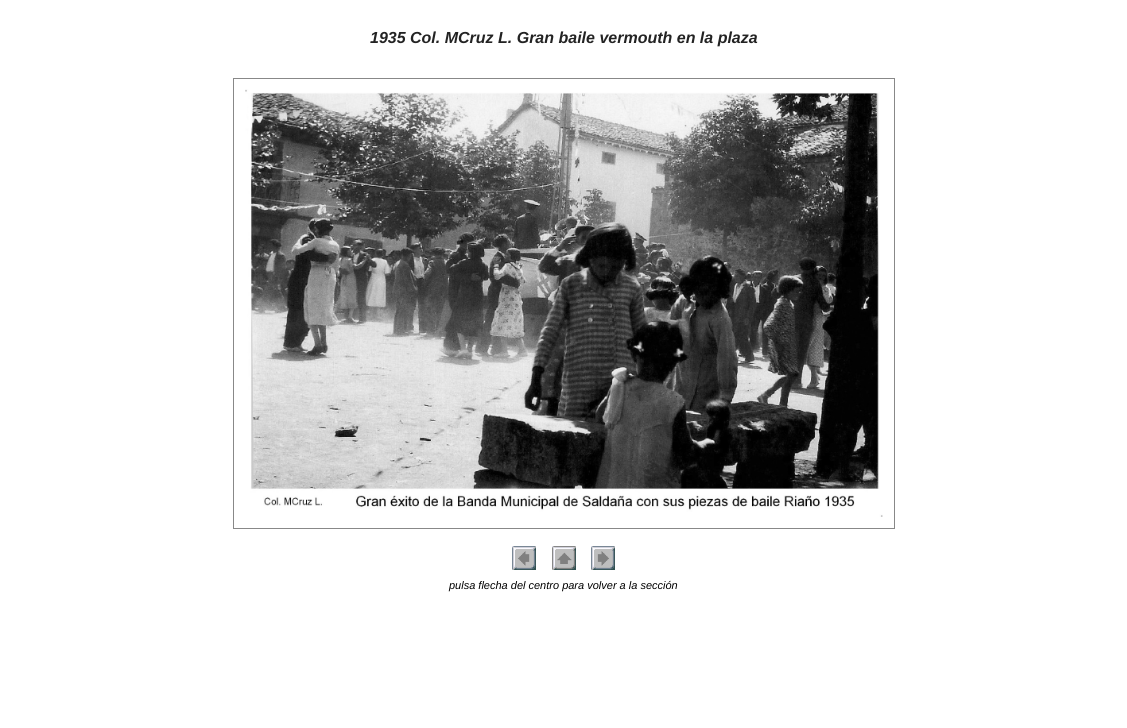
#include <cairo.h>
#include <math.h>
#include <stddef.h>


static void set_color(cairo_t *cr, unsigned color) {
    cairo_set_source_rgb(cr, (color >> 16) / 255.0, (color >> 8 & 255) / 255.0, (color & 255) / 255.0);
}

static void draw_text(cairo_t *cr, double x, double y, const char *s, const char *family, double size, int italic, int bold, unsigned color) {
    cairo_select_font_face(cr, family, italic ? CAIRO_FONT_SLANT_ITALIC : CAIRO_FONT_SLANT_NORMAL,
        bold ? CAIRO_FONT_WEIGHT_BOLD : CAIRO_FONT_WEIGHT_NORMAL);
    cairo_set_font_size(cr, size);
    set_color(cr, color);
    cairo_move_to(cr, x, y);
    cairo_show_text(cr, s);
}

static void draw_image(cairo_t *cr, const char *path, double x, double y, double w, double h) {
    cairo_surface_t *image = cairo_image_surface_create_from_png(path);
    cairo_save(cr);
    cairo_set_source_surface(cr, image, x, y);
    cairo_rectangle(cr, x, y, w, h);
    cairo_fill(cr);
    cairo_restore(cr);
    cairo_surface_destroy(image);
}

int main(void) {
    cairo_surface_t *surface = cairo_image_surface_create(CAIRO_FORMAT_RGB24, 1127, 728);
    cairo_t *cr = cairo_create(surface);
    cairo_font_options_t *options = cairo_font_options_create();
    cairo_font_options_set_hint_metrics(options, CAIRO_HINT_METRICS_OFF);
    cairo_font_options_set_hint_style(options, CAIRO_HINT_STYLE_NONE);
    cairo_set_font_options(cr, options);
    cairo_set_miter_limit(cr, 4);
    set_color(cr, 0xFFFFFF);
    cairo_paint(cr);
    draw_text(cr, 370, 43, "1935 Col. MCruz L. Gran baile vermouth en la plaza", "Liberation Sans", 16, 1, 1, 0x232323);
    cairo_rectangle(cr, 233.5, 78.5, 661, 450);
    set_color(cr, 0x888888);
    cairo_set_line_width(cr, 1);
    cairo_stroke(cr);
    draw_image(cr, "assets/img1.png", 245, 89, 638, 428);
    draw_image(cr, "assets/img2.png", 512, 546, 24, 24);
    draw_image(cr, "assets/img3.png", 552, 546, 24, 24);
    draw_image(cr, "assets/img4.png", 591, 546, 24, 24);
    draw_text(cr, 449, 589, "pulsa flecha del centro para volver a la sección", "Liberation Sans", 11, 1, 0, 0x000000);
    cairo_surface_write_to_png(surface, "output.png");
    cairo_font_options_destroy(options);
    cairo_destroy(cr);
    cairo_surface_destroy(surface);
    return 0;
}
